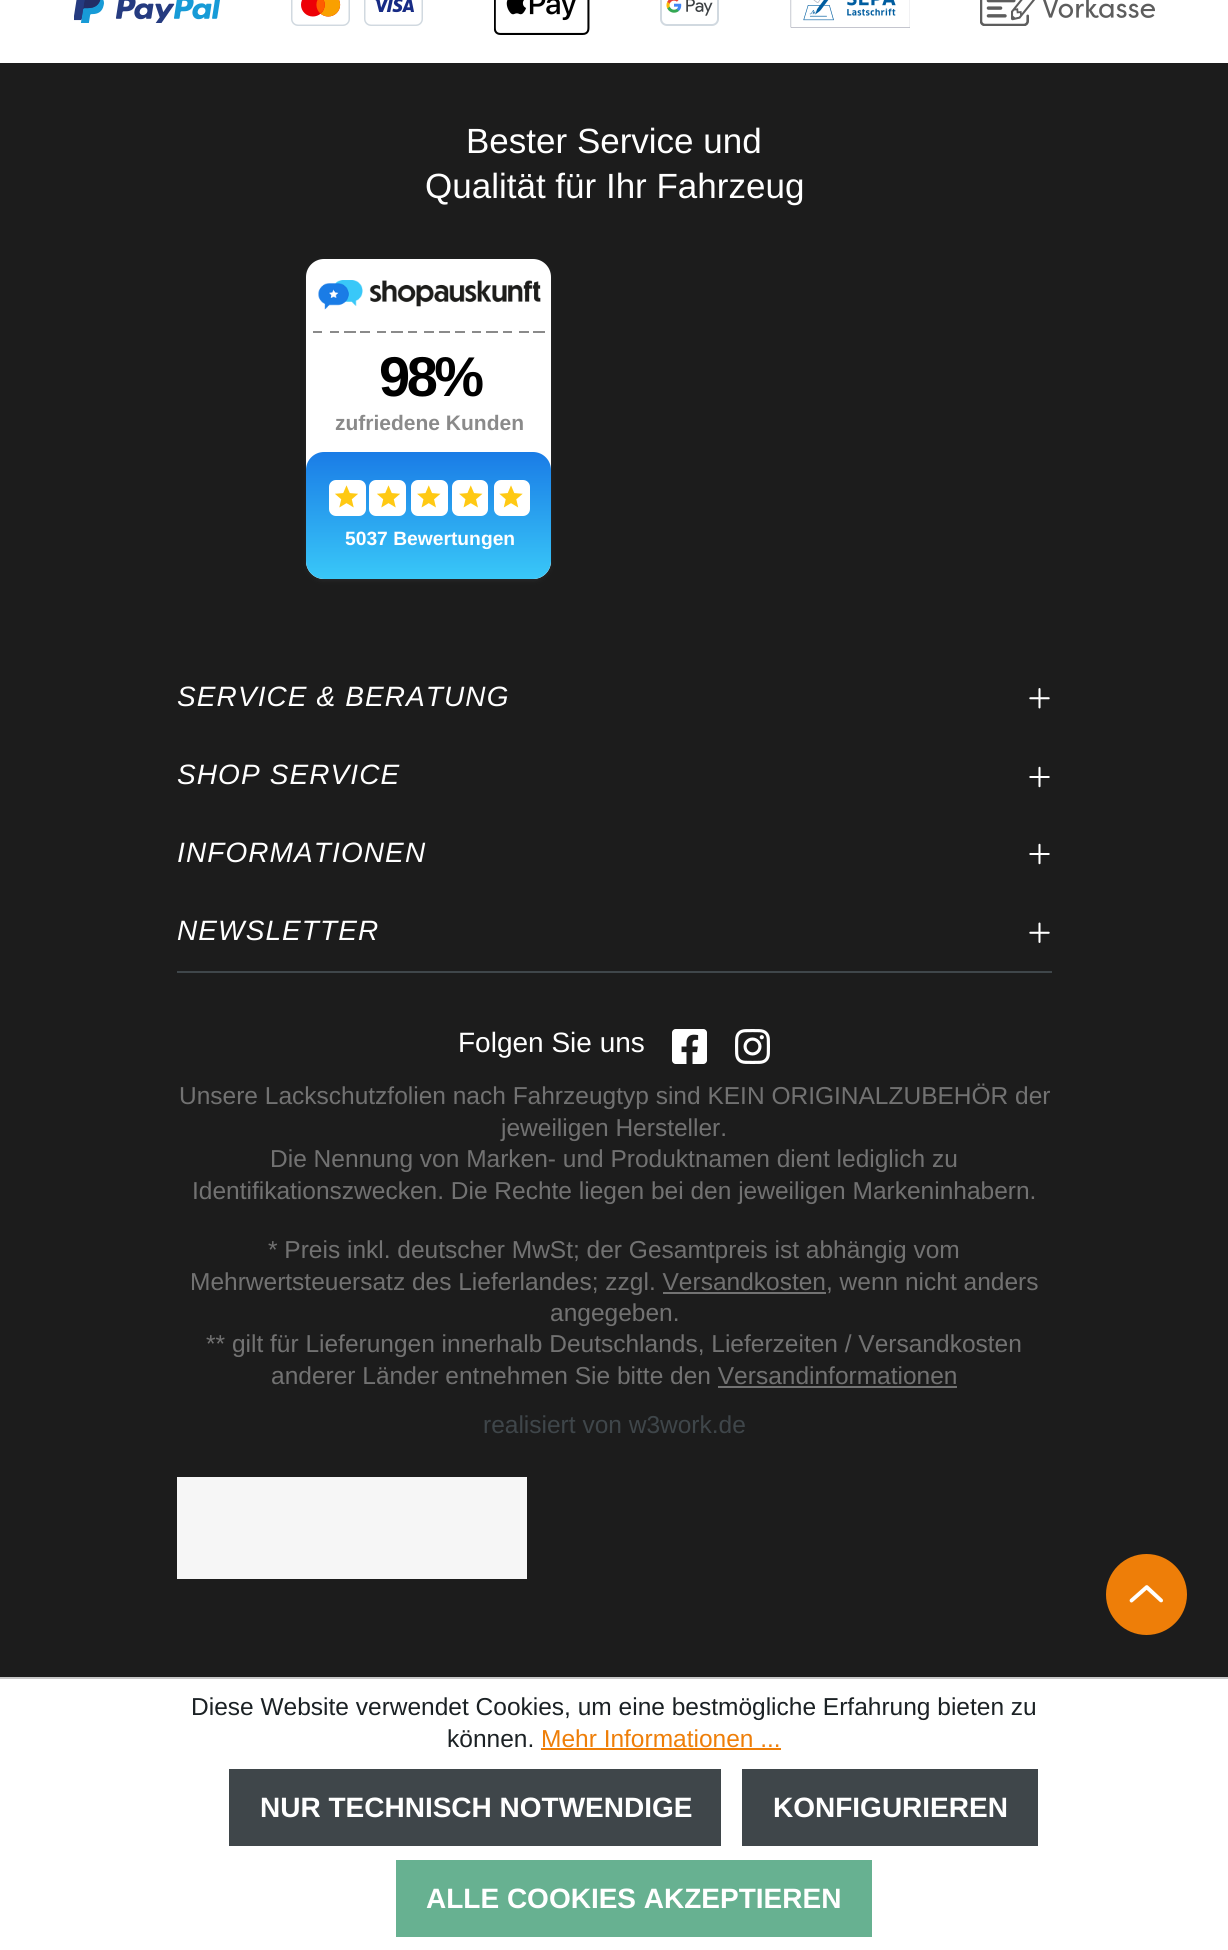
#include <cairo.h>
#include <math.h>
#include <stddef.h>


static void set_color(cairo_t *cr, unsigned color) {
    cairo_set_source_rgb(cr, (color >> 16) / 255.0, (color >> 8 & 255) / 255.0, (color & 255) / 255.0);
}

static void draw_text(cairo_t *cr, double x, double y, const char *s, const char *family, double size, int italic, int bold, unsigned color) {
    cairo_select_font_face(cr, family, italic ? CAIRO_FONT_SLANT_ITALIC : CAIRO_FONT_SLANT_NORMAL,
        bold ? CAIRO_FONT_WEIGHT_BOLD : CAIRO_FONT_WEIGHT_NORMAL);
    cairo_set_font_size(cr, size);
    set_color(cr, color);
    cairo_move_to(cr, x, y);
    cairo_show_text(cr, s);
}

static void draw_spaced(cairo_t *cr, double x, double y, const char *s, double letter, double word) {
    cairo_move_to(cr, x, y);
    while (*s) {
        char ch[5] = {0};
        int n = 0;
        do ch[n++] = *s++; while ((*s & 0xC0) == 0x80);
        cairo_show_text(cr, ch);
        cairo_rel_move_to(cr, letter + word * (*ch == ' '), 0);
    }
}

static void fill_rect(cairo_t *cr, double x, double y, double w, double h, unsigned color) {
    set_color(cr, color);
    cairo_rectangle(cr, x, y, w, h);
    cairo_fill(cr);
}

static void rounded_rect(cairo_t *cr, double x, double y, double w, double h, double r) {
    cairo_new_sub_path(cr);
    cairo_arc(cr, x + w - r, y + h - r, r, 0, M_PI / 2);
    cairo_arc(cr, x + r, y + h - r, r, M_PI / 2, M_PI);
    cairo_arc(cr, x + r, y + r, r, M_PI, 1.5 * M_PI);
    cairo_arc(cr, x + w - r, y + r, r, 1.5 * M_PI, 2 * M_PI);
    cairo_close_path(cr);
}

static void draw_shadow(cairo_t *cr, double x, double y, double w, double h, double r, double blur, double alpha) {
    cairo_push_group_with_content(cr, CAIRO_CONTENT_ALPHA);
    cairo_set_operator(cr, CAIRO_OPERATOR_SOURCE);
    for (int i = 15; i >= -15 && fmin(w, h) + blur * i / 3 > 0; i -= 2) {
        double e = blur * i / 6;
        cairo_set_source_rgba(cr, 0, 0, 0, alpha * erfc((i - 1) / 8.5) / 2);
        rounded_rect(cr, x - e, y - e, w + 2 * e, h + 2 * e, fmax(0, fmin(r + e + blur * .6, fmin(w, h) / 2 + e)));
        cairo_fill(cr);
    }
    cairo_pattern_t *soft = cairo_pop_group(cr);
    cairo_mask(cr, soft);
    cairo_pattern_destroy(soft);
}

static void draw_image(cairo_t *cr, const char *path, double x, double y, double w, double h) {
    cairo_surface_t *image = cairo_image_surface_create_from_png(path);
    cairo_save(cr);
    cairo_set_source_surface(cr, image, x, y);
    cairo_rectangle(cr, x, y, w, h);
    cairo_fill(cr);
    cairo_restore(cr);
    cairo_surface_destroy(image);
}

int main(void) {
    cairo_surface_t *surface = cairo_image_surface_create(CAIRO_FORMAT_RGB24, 1228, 1950);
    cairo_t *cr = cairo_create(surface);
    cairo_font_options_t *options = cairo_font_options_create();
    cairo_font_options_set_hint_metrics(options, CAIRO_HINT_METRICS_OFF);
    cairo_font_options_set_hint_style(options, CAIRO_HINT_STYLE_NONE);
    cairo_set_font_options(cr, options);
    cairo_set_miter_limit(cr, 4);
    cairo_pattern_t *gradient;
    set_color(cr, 0xFFFFFF);
    cairo_paint(cr);
    draw_image(cr, "assets/img1.png", 74, 0, 146, 23);
    draw_image(cr, "assets/img2.png", 291, 0, 132, 26);
    draw_image(cr, "assets/img3.png", 494, 0, 96, 35);
    draw_image(cr, "assets/img4.png", 660, 0, 59, 26);
    draw_image(cr, "assets/img5.png", 790, 0, 120, 28);
    draw_image(cr, "assets/img6.png", 980, 0, 175, 26);
    fill_rect(cr, 0, 63, 1228, 1614, 0x1C1C1C);
    draw_text(cr, 466, 153, "Bester Service und", "Liberation Sans", 35, 0, 0, 0xFFFFFF);
    draw_text(cr, 425, 198, "Qualität für Ihr Fahrzeug", "Liberation Sans", 35, 0, 0, 0xFFFFFF);
    set_color(cr, 0x3C4043);
    draw_shadow(cr, 306, 261, 245, 320, 18, 2, 0.3);
    set_color(cr, 0xFFFFFF);
    rounded_rect(cr, 306, 259, 245, 320, 18);
    cairo_fill(cr);
    draw_image(cr, "assets/img7.png", 318, 280, 223, 30);
    gradient = cairo_pattern_create_linear(313, 332, 550, 332);
    cairo_pattern_add_color_stop_rgba(gradient, 0, 0.541, 0.541, 0.541, 1);
    cairo_pattern_add_color_stop_rgba(gradient, 0.04, 0.541, 0.541, 0.541, 1);
    cairo_pattern_add_color_stop_rgba(gradient, 0.04, 1, 1, 1, 1);
    cairo_pattern_add_color_stop_rgba(gradient, 0.07, 1, 1, 1, 1);
    cairo_pattern_add_color_stop_rgba(gradient, 0.07, 0.541, 0.541, 0.541, 1);
    cairo_pattern_add_color_stop_rgba(gradient, 0.11, 0.541, 0.541, 0.541, 1);
    cairo_pattern_add_color_stop_rgba(gradient, 0.11, 1, 1, 1, 1);
    cairo_pattern_add_color_stop_rgba(gradient, 0.13, 1, 1, 1, 1);
    cairo_pattern_add_color_stop_rgba(gradient, 0.13, 0.541, 0.541, 0.541, 1);
    cairo_pattern_add_color_stop_rgba(gradient, 0.18, 0.541, 0.541, 0.541, 1);
    cairo_pattern_add_color_stop_rgba(gradient, 0.18, 1, 1, 1, 1);
    cairo_pattern_add_color_stop_rgba(gradient, 0.2, 1, 1, 1, 1);
    cairo_pattern_add_color_stop_rgba(gradient, 0.2, 0.541, 0.541, 0.541, 1);
    cairo_pattern_add_color_stop_rgba(gradient, 0.24, 0.541, 0.541, 0.541, 1);
    cairo_pattern_add_color_stop_rgba(gradient, 0.24, 1, 1, 1, 1);
    cairo_pattern_add_color_stop_rgba(gradient, 0.27, 1, 1, 1, 1);
    cairo_pattern_add_color_stop_rgba(gradient, 0.27, 0.541, 0.541, 0.541, 1);
    cairo_pattern_add_color_stop_rgba(gradient, 0.31, 0.541, 0.541, 0.541, 1);
    cairo_pattern_add_color_stop_rgba(gradient, 0.31, 1, 1, 1, 1);
    cairo_pattern_add_color_stop_rgba(gradient, 0.33, 1, 1, 1, 1);
    cairo_pattern_add_color_stop_rgba(gradient, 0.33, 0.541, 0.541, 0.541, 1);
    cairo_pattern_add_color_stop_rgba(gradient, 0.38, 0.541, 0.541, 0.541, 1);
    cairo_pattern_add_color_stop_rgba(gradient, 0.38, 1, 1, 1, 1);
    cairo_pattern_add_color_stop_rgba(gradient, 0.4, 1, 1, 1, 1);
    cairo_pattern_add_color_stop_rgba(gradient, 0.4, 0.541, 0.541, 0.541, 1);
    cairo_pattern_add_color_stop_rgba(gradient, 0.44, 0.541, 0.541, 0.541, 1);
    cairo_pattern_add_color_stop_rgba(gradient, 0.44, 1, 1, 1, 1);
    cairo_pattern_add_color_stop_rgba(gradient, 0.47, 1, 1, 1, 1);
    cairo_pattern_add_color_stop_rgba(gradient, 0.47, 0.541, 0.541, 0.541, 1);
    cairo_pattern_add_color_stop_rgba(gradient, 0.51, 0.541, 0.541, 0.541, 1);
    cairo_pattern_add_color_stop_rgba(gradient, 0.51, 1, 1, 1, 1);
    cairo_pattern_add_color_stop_rgba(gradient, 0.53, 1, 1, 1, 1);
    cairo_pattern_add_color_stop_rgba(gradient, 0.53, 0.541, 0.541, 0.541, 1);
    cairo_pattern_add_color_stop_rgba(gradient, 0.58, 0.541, 0.541, 0.541, 1);
    cairo_pattern_add_color_stop_rgba(gradient, 0.58, 1, 1, 1, 1);
    cairo_pattern_add_color_stop_rgba(gradient, 0.6, 1, 1, 1, 1);
    cairo_pattern_add_color_stop_rgba(gradient, 0.6, 0.541, 0.541, 0.541, 1);
    cairo_pattern_add_color_stop_rgba(gradient, 0.64, 0.541, 0.541, 0.541, 1);
    cairo_pattern_add_color_stop_rgba(gradient, 0.64, 1, 1, 1, 1);
    cairo_pattern_add_color_stop_rgba(gradient, 0.67, 1, 1, 1, 1);
    cairo_pattern_add_color_stop_rgba(gradient, 0.67, 0.541, 0.541, 0.541, 1);
    cairo_pattern_add_color_stop_rgba(gradient, 0.71, 0.541, 0.541, 0.541, 1);
    cairo_pattern_add_color_stop_rgba(gradient, 0.71, 1, 1, 1, 1);
    cairo_pattern_add_color_stop_rgba(gradient, 0.73, 1, 1, 1, 1);
    cairo_pattern_add_color_stop_rgba(gradient, 0.73, 0.541, 0.541, 0.541, 1);
    cairo_pattern_add_color_stop_rgba(gradient, 0.78, 0.541, 0.541, 0.541, 1);
    cairo_pattern_add_color_stop_rgba(gradient, 0.78, 1, 1, 1, 1);
    cairo_pattern_add_color_stop_rgba(gradient, 0.8, 1, 1, 1, 1);
    cairo_pattern_add_color_stop_rgba(gradient, 0.8, 0.541, 0.541, 0.541, 1);
    cairo_pattern_add_color_stop_rgba(gradient, 0.84, 0.541, 0.541, 0.541, 1);
    cairo_pattern_add_color_stop_rgba(gradient, 0.84, 1, 1, 1, 1);
    cairo_pattern_add_color_stop_rgba(gradient, 0.87, 1, 1, 1, 1);
    cairo_pattern_add_color_stop_rgba(gradient, 0.87, 0.541, 0.541, 0.541, 1);
    cairo_pattern_add_color_stop_rgba(gradient, 0.91, 0.541, 0.541, 0.541, 1);
    cairo_pattern_add_color_stop_rgba(gradient, 0.91, 1, 1, 1, 1);
    cairo_pattern_add_color_stop_rgba(gradient, 0.93, 1, 1, 1, 1);
    cairo_pattern_add_color_stop_rgba(gradient, 0.93, 0.541, 0.541, 0.541, 1);
    cairo_pattern_add_color_stop_rgba(gradient, 0.98, 0.541, 0.541, 0.541, 1);
    cairo_pattern_add_color_stop_rgba(gradient, 0.98, 1, 1, 1, 1);
    cairo_pattern_add_color_stop_rgba(gradient, 1, 1, 1, 1, 1);
    cairo_set_source(cr, gradient);
    cairo_pattern_destroy(gradient);
    cairo_rectangle(cr, 313, 331, 233, 2);
    cairo_fill(cr);
    cairo_select_font_face(cr, "Liberation Sans", CAIRO_FONT_SLANT_NORMAL, CAIRO_FONT_WEIGHT_BOLD);
    cairo_set_font_size(cr, 56);
    set_color(cr, 0x000000);
    draw_spaced(cr, 379, 396, "98%", -3.5, 0);
    draw_text(cr, 335, 430, "zufriedene Kunden", "Liberation Sans", 21, 0, 1, 0x8A8A8A);
    gradient = cairo_pattern_create_linear(429, 452, 429, 579);
    cairo_pattern_add_color_stop_rgba(gradient, 0, 0.102, 0.486, 0.902, 1);
    cairo_pattern_add_color_stop_rgba(gradient, 1, 0.224, 0.784, 0.973, 1);
    cairo_set_source(cr, gradient);
    cairo_pattern_destroy(gradient);
    rounded_rect(cr, 306, 452, 245, 127, 18);
    cairo_fill(cr);
    set_color(cr, 0xFFFFFF);
    rounded_rect(cr, 329, 480, 37, 36, 7);
    cairo_fill(cr);
    draw_image(cr, "assets/img8.png", 335, 485, 23, 23);
    rounded_rect(cr, 369, 480, 37, 36, 7);
    cairo_fill(cr);
    draw_image(cr, "assets/img8.png", 377, 485, 23, 23);
    rounded_rect(cr, 411, 480, 37, 36, 7);
    cairo_fill(cr);
    draw_image(cr, "assets/img9.png", 417, 485, 24, 23);
    rounded_rect(cr, 452, 480, 36, 36, 7);
    cairo_fill(cr);
    draw_image(cr, "assets/img9.png", 459, 485, 24, 23);
    rounded_rect(cr, 494, 480, 36, 36, 7);
    cairo_fill(cr);
    draw_image(cr, "assets/img10.png", 499, 485, 24, 23);
    draw_text(cr, 345, 545, "5037 Bewertungen", "Liberation Sans", 19.25, 0, 1, 0xFFFFFF);
    cairo_select_font_face(cr, "Liberation Sans", CAIRO_FONT_SLANT_ITALIC, CAIRO_FONT_WEIGHT_NORMAL);
    cairo_set_font_size(cr, 28);
    draw_spaced(cr, 177, 706, "SERVICE & BERATUNG", 1.1, 0);
    draw_image(cr, "assets/img11.png", 1029, 688, 21, 21);
    draw_spaced(cr, 177, 784, "SHOP SERVICE", 1.1, 0);
    draw_image(cr, "assets/img12.png", 1029, 766, 21, 22);
    draw_spaced(cr, 177, 862, "INFORMATIONEN", 1.1, 0);
    draw_image(cr, "assets/img12.png", 1029, 843, 21, 22);
    draw_spaced(cr, 177, 940, "NEWSLETTER", 1.1, 0);
    draw_image(cr, "assets/img13.png", 1029, 922, 21, 21);
    fill_rect(cr, 177, 971, 875, 2, 0x3F464A);
    draw_text(cr, 458, 1052, "Folgen Sie uns", "Liberation Sans", 28, 0, 0, 0xFFFFFF);
    draw_image(cr, "assets/img14.png", 672, 1029, 35, 35);
    draw_image(cr, "assets/img15.png", 735, 1029, 35, 35);
    draw_text(cr, 179, 1104, "Unsere Lackschutzfolien nach Fahrzeugtyp sind KEIN ORIGINALZUBEHÖR der", "Liberation Sans", 24.5, 0, 0, 0x727272);
    draw_text(cr, 501, 1136, "jeweiligen Hersteller.", "Liberation Sans", 24.5, 0, 0, 0x727272);
    draw_text(cr, 270, 1167, "Die Nennung von Marken- und Produktnamen dient lediglich zu", "Liberation Sans", 24.5, 0, 0, 0x727272);
    draw_text(cr, 192, 1199, "Identifikationszwecken. Die Rechte liegen bei den jeweiligen Markeninhabern.", "Liberation Sans", 24.5, 0, 0, 0x727272);
    draw_text(cr, 268, 1258, "* Preis inkl. deutscher MwSt; der Gesamtpreis ist abhängig vom", "Liberation Sans", 24.5, 0, 0, 0x727272);
    draw_text(cr, 190, 1290, "Mehrwertsteuersatz des Lieferlandes; zzgl. Versandkosten, wenn nicht anders", "Liberation Sans", 24.5, 0, 0, 0x727272);
    fill_rect(cr, 663, 1292, 163, 2, 0x727272);
    draw_text(cr, 550, 1321, "angegeben.", "Liberation Sans", 24.5, 0, 0, 0x727272);
    draw_text(cr, 206, 1352, "** gilt für Lieferungen innerhalb Deutschlands, Lieferzeiten / Versandkosten", "Liberation Sans", 24.5, 0, 0, 0x727272);
    draw_text(cr, 271, 1384, "anderer Länder entnehmen Sie bitte den Versandinformationen", "Liberation Sans", 24.5, 0, 0, 0x727272);
    fill_rect(cr, 718, 1386, 239, 2, 0x727272);
    draw_text(cr, 483, 1433, "realisiert von w3work.de", "Liberation Sans", 24.5, 0, 0, 0x3F464A);
    fill_rect(cr, 177, 1477, 350, 102, 0xF6F6F6);
    set_color(cr, 0xEE7E08);
    cairo_new_path(cr);
    cairo_arc(cr, 1146.5, 1594.5, 40.5, 0, 2 * M_PI);
    cairo_fill(cr);
    draw_image(cr, "assets/img16.png", 1129, 1585, 34, 18);
    fill_rect(cr, 0, 1677, 1228, 2, 0xC7C7C7);
    draw_text(cr, 191, 1715, "Diese Website verwendet Cookies, um eine bestmögliche Erfahrung bieten zu", "Liberation Sans", 24.5, 0, 0, 0x1B2124);
    draw_text(cr, 447, 1747, "können.", "Liberation Sans", 24.5, 0, 0, 0x1B2124);
    draw_text(cr, 541, 1747, "Mehr Informationen ...", "Liberation Sans", 24.5, 0, 0, 0xEE7E08);
    fill_rect(cr, 541, 1748, 240, 2, 0xEE7E08);
    fill_rect(cr, 229, 1769, 492, 77, 0x3F464A);
    draw_text(cr, 260, 1817, "NUR TECHNISCH NOTWENDIGE", "Liberation Sans", 28, 0, 1, 0xFFFFFF);
    fill_rect(cr, 742, 1769, 296, 77, 0x3F464A);
    draw_text(cr, 773, 1817, "KONFIGURIEREN", "Liberation Sans", 28, 0, 1, 0xFFFFFF);
    fill_rect(cr, 396, 1860, 476, 77, 0x67B191);
    draw_text(cr, 426, 1908, "ALLE COOKIES AKZEPTIEREN", "Liberation Sans", 28, 0, 1, 0xFFFFFF);
    cairo_surface_write_to_png(surface, "output.png");
    cairo_font_options_destroy(options);
    cairo_destroy(cr);
    cairo_surface_destroy(surface);
    return 0;
}
